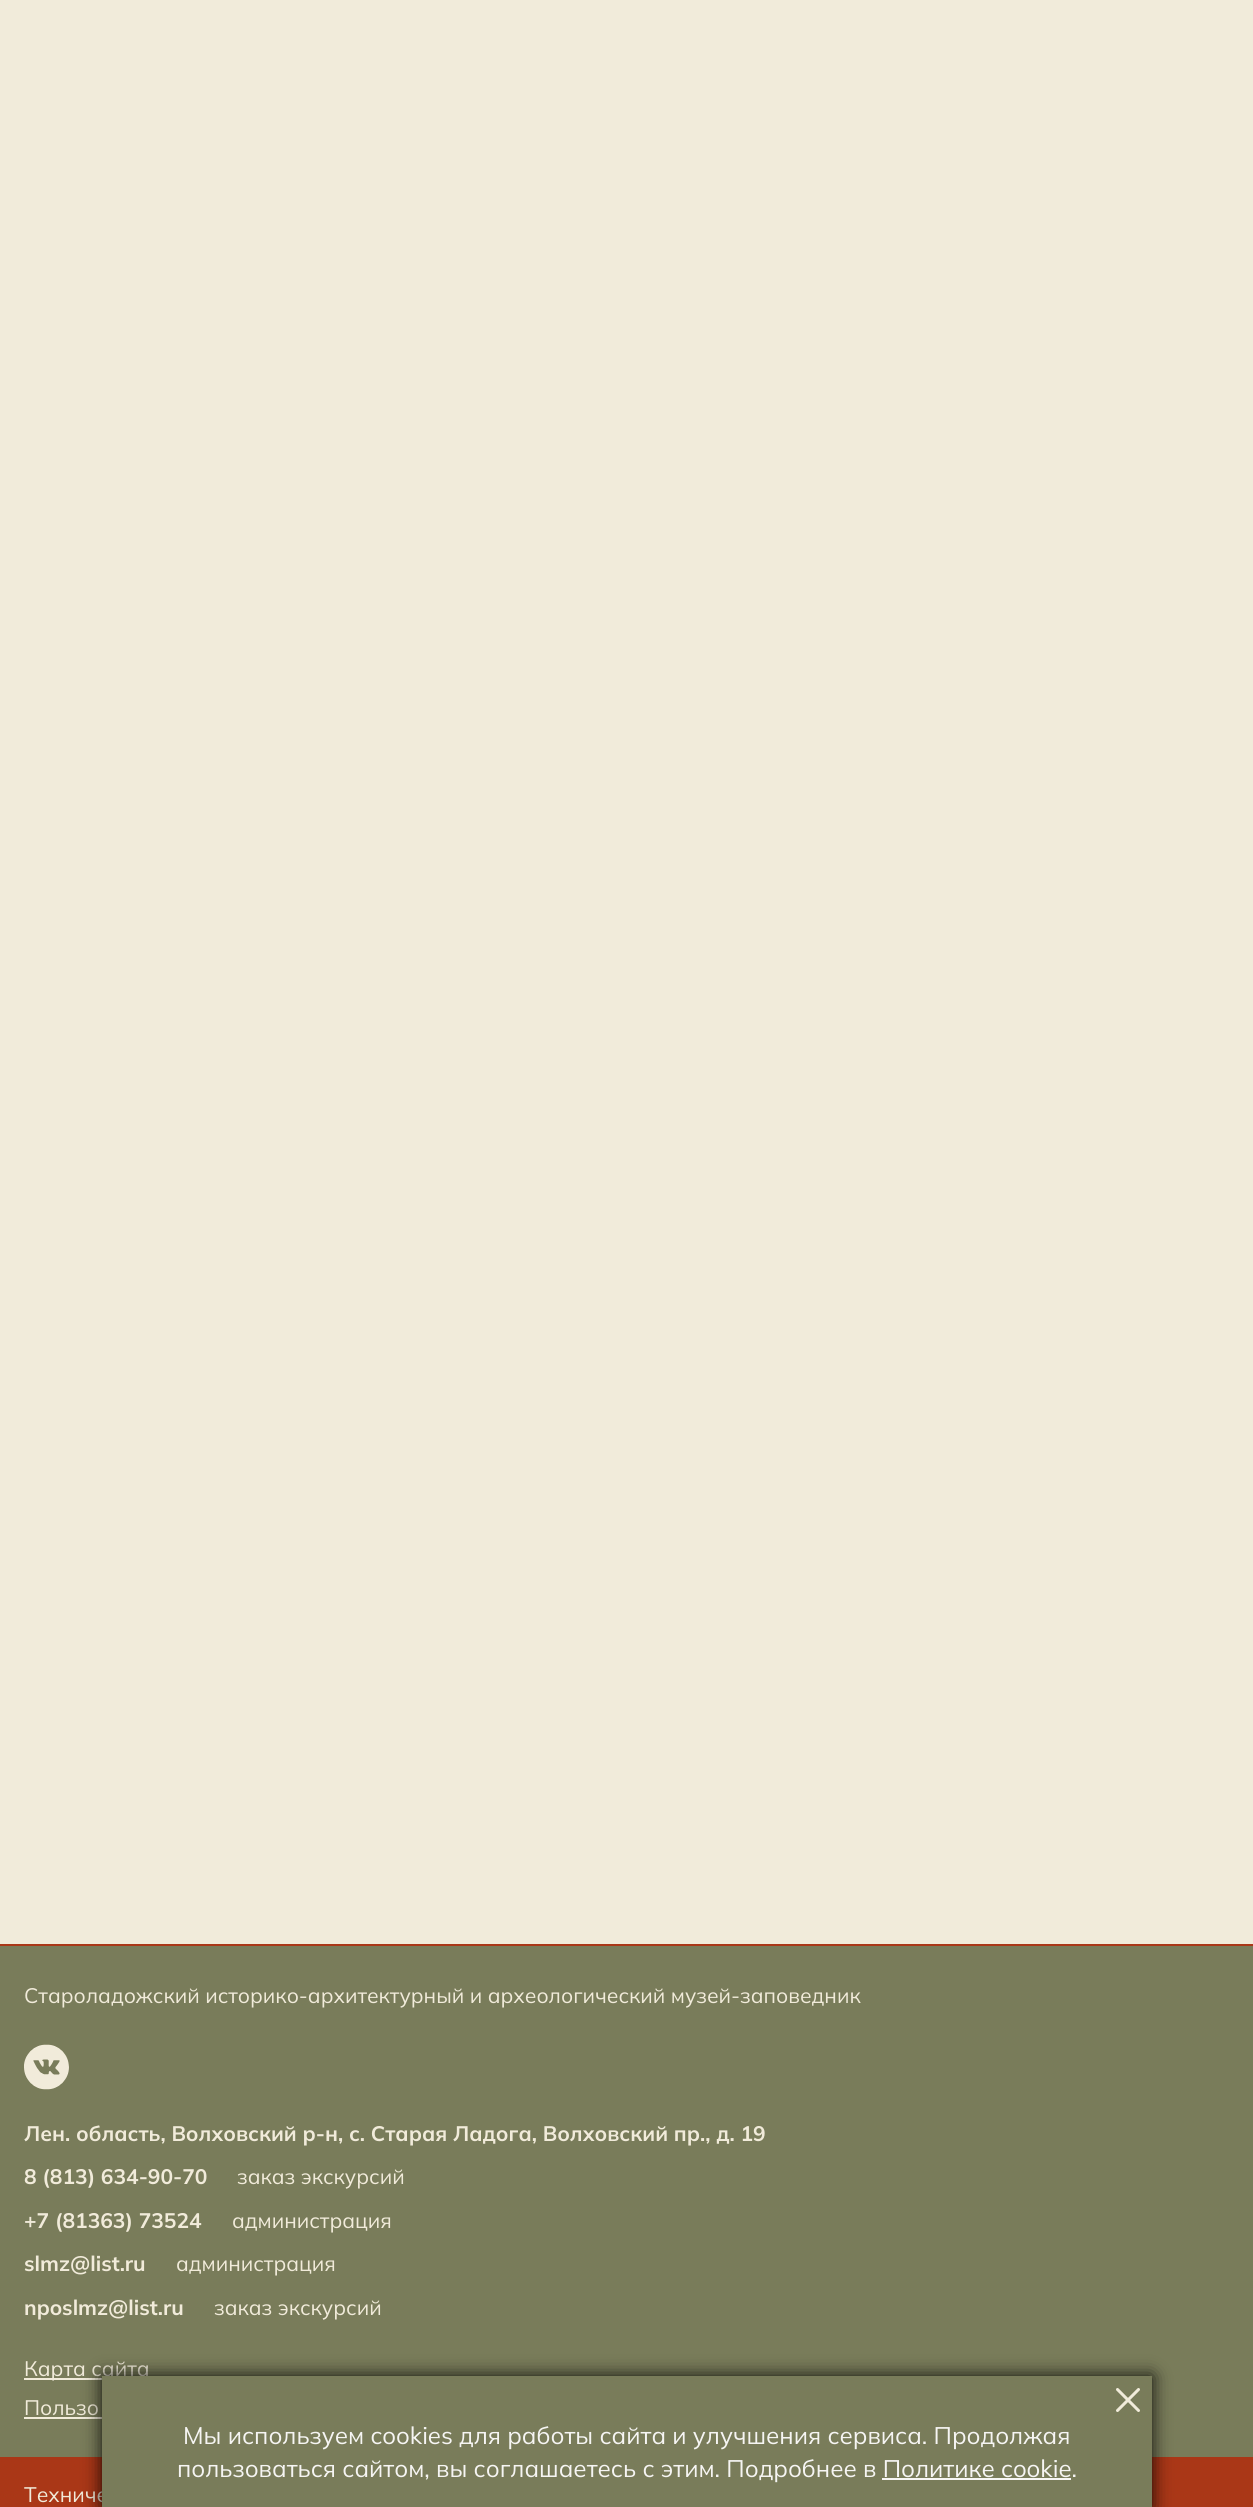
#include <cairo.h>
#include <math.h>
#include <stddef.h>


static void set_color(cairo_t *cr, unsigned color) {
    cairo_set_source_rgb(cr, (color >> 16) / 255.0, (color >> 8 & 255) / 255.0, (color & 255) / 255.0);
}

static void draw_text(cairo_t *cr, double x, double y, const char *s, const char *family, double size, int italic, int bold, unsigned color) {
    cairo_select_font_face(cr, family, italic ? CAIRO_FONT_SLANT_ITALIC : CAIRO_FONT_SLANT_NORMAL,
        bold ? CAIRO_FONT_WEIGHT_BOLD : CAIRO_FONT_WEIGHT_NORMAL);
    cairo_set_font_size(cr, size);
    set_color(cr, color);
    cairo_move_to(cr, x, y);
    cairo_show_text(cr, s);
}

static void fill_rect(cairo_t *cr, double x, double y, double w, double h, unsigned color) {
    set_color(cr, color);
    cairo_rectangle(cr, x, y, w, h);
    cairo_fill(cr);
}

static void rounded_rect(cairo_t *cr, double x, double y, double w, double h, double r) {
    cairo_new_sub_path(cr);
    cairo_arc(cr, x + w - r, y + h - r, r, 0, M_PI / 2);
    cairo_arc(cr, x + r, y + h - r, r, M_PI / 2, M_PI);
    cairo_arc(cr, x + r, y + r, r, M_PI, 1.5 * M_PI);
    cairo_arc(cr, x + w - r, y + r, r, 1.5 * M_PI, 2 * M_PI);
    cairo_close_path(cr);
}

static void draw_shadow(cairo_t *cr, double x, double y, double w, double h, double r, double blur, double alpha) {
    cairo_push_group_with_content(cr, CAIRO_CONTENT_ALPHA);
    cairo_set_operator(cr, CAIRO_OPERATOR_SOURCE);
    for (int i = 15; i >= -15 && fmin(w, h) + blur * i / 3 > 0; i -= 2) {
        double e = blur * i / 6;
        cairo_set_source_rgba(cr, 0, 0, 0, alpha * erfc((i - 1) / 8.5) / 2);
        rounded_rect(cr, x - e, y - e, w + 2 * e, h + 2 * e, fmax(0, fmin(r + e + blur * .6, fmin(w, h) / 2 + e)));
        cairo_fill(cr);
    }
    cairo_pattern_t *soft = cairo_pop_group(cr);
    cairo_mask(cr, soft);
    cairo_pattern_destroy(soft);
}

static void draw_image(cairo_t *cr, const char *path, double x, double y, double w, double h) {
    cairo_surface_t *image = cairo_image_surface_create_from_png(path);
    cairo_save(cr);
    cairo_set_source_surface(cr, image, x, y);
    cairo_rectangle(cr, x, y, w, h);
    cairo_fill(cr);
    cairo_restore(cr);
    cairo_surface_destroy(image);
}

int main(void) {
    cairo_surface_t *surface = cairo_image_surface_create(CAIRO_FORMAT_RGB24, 1253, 2507);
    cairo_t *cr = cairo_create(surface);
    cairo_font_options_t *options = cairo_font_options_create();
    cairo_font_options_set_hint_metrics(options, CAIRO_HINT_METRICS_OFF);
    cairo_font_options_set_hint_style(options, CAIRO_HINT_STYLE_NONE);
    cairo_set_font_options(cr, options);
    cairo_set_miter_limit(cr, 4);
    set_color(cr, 0xF1EBDA);
    cairo_paint(cr);
    fill_rect(cr, 0, 1946, 1253, 511, 0x797C5A);
    fill_rect(cr, 0, 1944, 1253, 2, 0xAA3717);
    draw_text(cr, 24, 2003, "Староладожский историко-архитектурный и археологический музей-заповедник", "Mulish", 21, 0, 0, 0xF1EBDA);
    draw_image(cr, "assets/img1.png", 24, 2044, 45, 46);
    draw_text(cr, 24, 2141, "Лен. область, Волховский р-н, с. Старая Ладога, Волховский пр., д. 19", "Mulish", 21, 0, 1, 0xF1EBDA);
    draw_text(cr, 24, 2184, "8 (813) 634-90-70", "Mulish", 21, 0, 1, 0xF1EBDA);
    draw_text(cr, 237, 2184, "заказ экскурсий", "Mulish", 21, 0, 0, 0xF1EBDA);
    draw_text(cr, 24, 2228, "+7 (81363) 73524", "Mulish", 21, 0, 1, 0xF1EBDA);
    draw_text(cr, 232, 2228, "администрация", "Mulish", 21, 0, 0, 0xF1EBDA);
    draw_text(cr, 24, 2271, "slmz@list.ru", "Mulish", 21, 0, 1, 0xF1EBDA);
    draw_text(cr, 176, 2271, "администрация", "Mulish", 21, 0, 0, 0xF1EBDA);
    draw_text(cr, 24, 2315, "nposlmz@list.ru", "Mulish", 21, 0, 1, 0xF1EBDA);
    draw_text(cr, 214, 2315, "заказ экскурсий", "Mulish", 21, 0, 0, 0xF1EBDA);
    fill_rect(cr, 24, 2378, 78, 2, 0xF1EBDA);
    draw_text(cr, 24, 2376, "Карта сайта", "Mulish", 21, 0, 0, 0xF1EBDA);
    draw_text(cr, 24, 2415, "Пользо", "Mulish", 21, 0, 0, 0xF1EBDA);
    fill_rect(cr, 24, 2417, 78, 2, 0xF1EBDA);
    fill_rect(cr, 0, 2457, 1253, 50, 0xAA3717);
    draw_text(cr, 24, 2502, "Техниче", "Mulish", 21, 0, 0, 0xF1EBDA);
    set_color(cr, 0x000000);
    draw_shadow(cr, 102, 2376, 1050, 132, 0, 9, 0.9);
    fill_rect(cr, 102, 2376, 1050, 131, 0x797C5A);
    cairo_new_path(cr);
    cairo_move_to(cr, 1117.5, 2389.5);
    cairo_line_to(cr, 1138.5, 2410.5);
    cairo_move_to(cr, 1138.5, 2389.5);
    cairo_line_to(cr, 1117.5, 2410.5);
    set_color(cr, 0xF1EBDA);
    cairo_set_line_width(cr, 3);
    cairo_set_line_cap(cr, CAIRO_LINE_CAP_ROUND);
    cairo_stroke(cr);
    draw_text(cr, 183, 2444, "Мы используем cookies для работы сайта и улучшения сервиса. Продолжая", "Mulish", 24, 0, 0, 0xF6F5F3);
    draw_text(cr, 177, 2477, "пользоваться сайтом, вы соглашаетесь с этим. Подробнее в Политике cookie.", "Mulish", 24, 0, 0, 0xF6F5F3);
    fill_rect(cr, 882, 2478, 189, 2, 0xF6F5F3);
    cairo_surface_write_to_png(surface, "output.png");
    cairo_font_options_destroy(options);
    cairo_destroy(cr);
    cairo_surface_destroy(surface);
    return 0;
}
